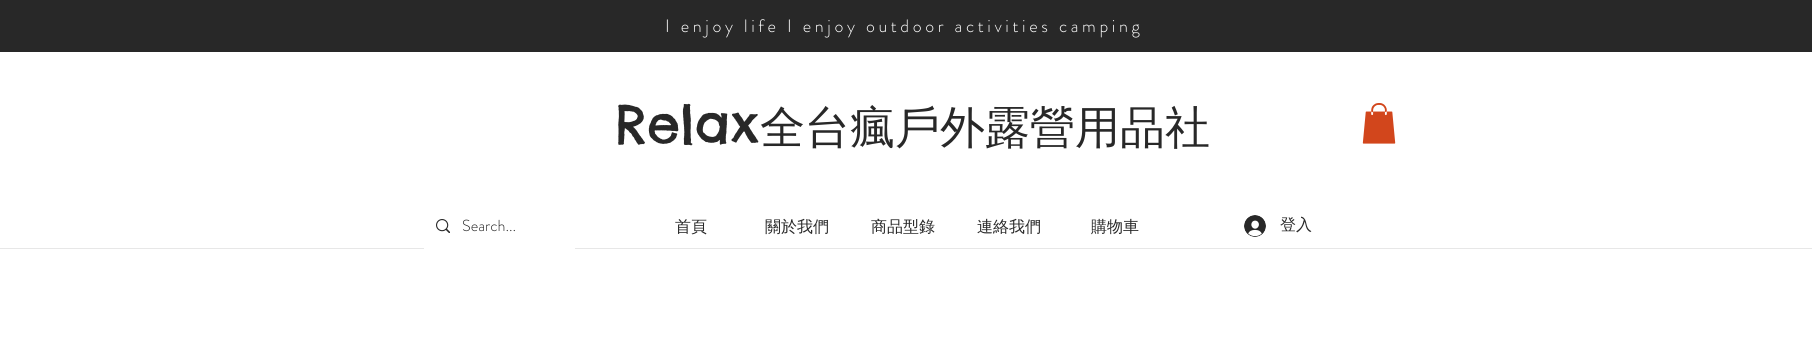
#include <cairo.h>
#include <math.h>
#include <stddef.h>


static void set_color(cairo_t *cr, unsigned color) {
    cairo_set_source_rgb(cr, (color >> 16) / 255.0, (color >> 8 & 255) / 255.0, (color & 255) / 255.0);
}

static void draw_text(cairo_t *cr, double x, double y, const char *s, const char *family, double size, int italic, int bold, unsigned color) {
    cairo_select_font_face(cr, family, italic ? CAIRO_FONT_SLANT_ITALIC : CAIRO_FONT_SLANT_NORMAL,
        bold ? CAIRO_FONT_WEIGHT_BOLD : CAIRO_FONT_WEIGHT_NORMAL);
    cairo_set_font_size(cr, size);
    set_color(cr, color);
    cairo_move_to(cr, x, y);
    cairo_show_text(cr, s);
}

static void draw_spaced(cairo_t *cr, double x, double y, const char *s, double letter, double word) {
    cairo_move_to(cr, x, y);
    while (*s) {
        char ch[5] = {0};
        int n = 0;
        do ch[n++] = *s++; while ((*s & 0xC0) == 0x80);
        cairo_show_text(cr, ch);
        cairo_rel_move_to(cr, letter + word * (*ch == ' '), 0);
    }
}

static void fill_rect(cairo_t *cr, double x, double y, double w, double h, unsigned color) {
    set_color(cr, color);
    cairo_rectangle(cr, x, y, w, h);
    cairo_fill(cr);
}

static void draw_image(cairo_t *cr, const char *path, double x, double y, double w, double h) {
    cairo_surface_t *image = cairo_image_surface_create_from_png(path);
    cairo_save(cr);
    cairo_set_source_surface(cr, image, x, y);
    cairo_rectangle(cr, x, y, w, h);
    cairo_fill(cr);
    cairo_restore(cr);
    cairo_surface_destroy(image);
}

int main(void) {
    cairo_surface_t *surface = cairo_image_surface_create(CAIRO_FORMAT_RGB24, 1812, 337);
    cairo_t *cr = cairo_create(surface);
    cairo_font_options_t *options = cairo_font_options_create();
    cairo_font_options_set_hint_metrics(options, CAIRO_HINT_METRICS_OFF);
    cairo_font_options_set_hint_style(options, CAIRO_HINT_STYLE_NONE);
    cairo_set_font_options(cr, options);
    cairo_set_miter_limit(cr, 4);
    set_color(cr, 0xFFFFFF);
    cairo_paint(cr);
    fill_rect(cr, 0, 0, 1812, 52, 0x282828);
    cairo_select_font_face(cr, "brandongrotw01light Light", CAIRO_FONT_SLANT_NORMAL, CAIRO_FONT_WEIGHT_NORMAL);
    cairo_set_font_size(cr, 18);
    set_color(cr, 0xFFFFFF);
    draw_spaced(cr, 665, 32, "I enjoy life I enjoy outdoor activities camping", 3.6, 0);
    draw_text(cr, 615, 143, "Relax", "Chelsea Market", 52, 0, 0, 0x282828);
    draw_text(cr, 760, 143, "全台瘋戶外露營用品社", "WenQuanYi Zen Hei Medium", 45, 0, 0, 0x282828);
    draw_image(cr, "assets/img1.png", 1362, 103, 34, 41);
    fill_rect(cr, 0, 248, 1812, 1, 0xE7E7E7);
    fill_rect(cr, 424, 248, 151, 1, 0xFFFFFF);
    draw_image(cr, "assets/img2.png", 436, 219, 14, 14);
    draw_text(cr, 462, 231, "Search...", "brandongrotw01light Light", 16, 0, 0, 0x282828);
    draw_text(cr, 675, 232, "首頁", "WenQuanYi Zen Hei Medium", 16, 0, 0, 0x282828);
    draw_text(cr, 765, 232, "關於我們", "WenQuanYi Zen Hei Medium", 16, 0, 0, 0x282828);
    draw_text(cr, 871, 232, "商品型錄", "WenQuanYi Zen Hei Medium", 16, 0, 0, 0x282828);
    draw_text(cr, 977, 232, "連絡我們", "WenQuanYi Zen Hei Medium", 16, 0, 0, 0x282828);
    draw_text(cr, 1091, 232, "購物車", "WenQuanYi Zen Hei Medium", 16, 0, 0, 0x282828);
    draw_image(cr, "assets/img3.png", 1244, 215, 22, 22);
    draw_text(cr, 1280, 230, "登入", "WenQuanYi Zen Hei Medium", 16, 0, 0, 0x282828);
    cairo_surface_write_to_png(surface, "output.png");
    cairo_font_options_destroy(options);
    cairo_destroy(cr);
    cairo_surface_destroy(surface);
    return 0;
}
